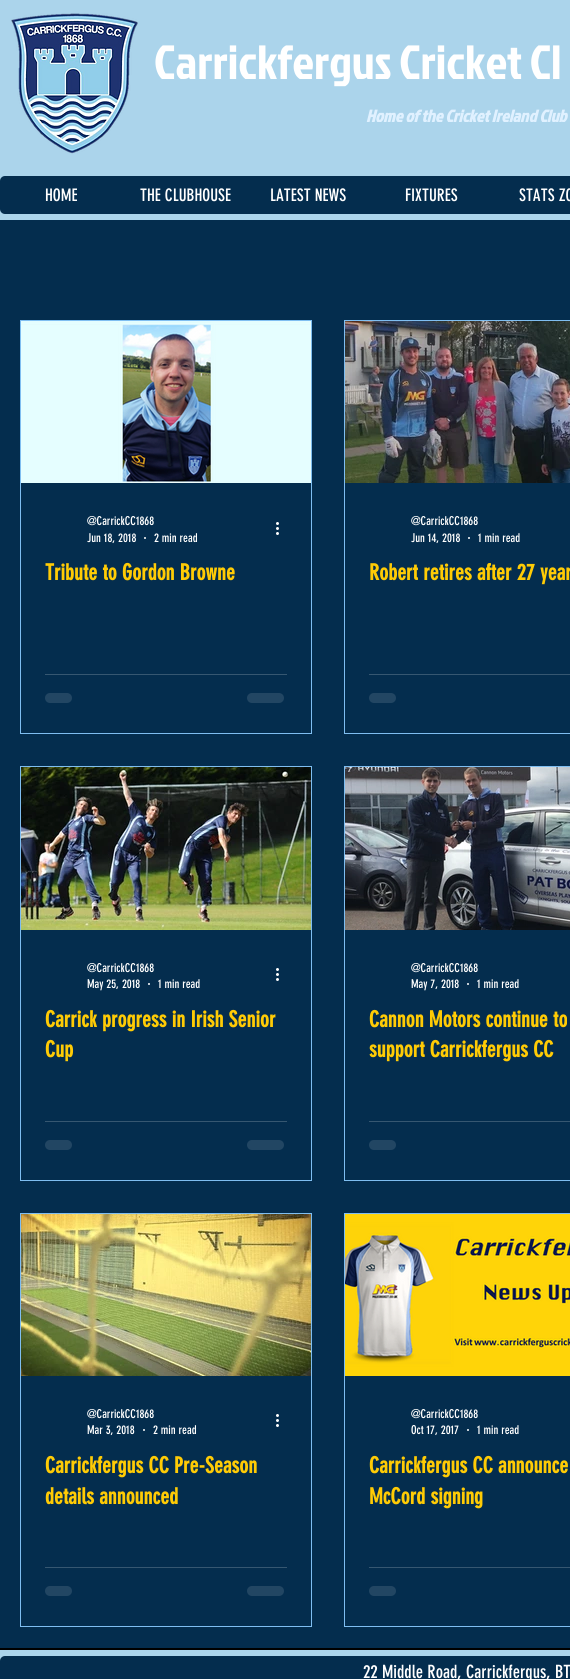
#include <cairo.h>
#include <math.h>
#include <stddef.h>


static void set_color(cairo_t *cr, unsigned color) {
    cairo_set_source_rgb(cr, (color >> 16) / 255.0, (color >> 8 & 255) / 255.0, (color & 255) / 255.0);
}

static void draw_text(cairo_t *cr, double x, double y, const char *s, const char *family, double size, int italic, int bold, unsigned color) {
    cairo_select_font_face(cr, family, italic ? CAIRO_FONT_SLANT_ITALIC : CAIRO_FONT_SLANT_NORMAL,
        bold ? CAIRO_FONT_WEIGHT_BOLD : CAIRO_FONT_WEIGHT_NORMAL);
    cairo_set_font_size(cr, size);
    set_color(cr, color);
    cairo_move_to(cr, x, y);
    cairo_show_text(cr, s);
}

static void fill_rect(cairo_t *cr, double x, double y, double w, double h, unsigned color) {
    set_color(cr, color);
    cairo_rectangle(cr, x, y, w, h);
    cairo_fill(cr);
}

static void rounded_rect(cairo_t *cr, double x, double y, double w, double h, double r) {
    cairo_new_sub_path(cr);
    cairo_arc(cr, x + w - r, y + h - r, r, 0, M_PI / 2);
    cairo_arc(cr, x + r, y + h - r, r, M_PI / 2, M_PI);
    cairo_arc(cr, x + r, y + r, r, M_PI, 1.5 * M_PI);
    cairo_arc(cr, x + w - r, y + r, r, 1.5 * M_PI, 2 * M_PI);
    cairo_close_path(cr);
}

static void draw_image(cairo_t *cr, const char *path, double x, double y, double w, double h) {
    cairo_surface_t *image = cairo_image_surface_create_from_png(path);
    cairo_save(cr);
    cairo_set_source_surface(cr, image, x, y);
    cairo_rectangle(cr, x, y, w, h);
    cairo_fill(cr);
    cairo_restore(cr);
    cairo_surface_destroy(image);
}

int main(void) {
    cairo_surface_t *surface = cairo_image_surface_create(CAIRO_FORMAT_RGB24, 570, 1679);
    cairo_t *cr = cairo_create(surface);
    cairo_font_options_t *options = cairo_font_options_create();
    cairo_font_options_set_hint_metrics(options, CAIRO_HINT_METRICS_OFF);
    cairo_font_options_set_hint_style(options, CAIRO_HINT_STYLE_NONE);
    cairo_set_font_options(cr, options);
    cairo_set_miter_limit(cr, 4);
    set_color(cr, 0xABD4EB);
    cairo_paint(cr);
    draw_image(cr, "assets/img1.png", 11, 13, 127, 141);
    draw_text(cr, 154, 79, "Carrickfergus Cricket Cl", "Jockey One", 48, 0, 0, 0xFFFFFF);
    draw_text(cr, 366, 122, "Home of the Cricket Ireland Club", "Jockey One", 17, 1, 1, 0xE0F1FF);
    set_color(cr, 0x042D4E);
    rounded_rect(cr, 0, 176, 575, 38, 5);
    cairo_fill(cr);
    draw_text(cr, 45, 201, "HOME", "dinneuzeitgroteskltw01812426", 17, 0, 0, 0xFFFFFF);
    draw_text(cr, 140, 201, "THE CLUBHOUSE", "dinneuzeitgroteskltw01812426", 17, 0, 0, 0xFFFFFF);
    draw_text(cr, 270, 201, "LATEST NEWS", "dinneuzeitgroteskltw01812426", 17, 0, 0, 0xFFFFFF);
    draw_text(cr, 405, 201, "FIXTURES", "dinneuzeitgroteskltw01812426", 17, 0, 0, 0xFFFFFF);
    draw_text(cr, 519, 201, "STATS ZO", "dinneuzeitgroteskltw01812426", 17, 0, 0, 0xFFFFFF);
    fill_rect(cr, 0, 220, 570, 1428, 0x042D4E);
    cairo_rectangle(cr, 20.5, 320.5, 291, 413);
    set_color(cr, 0x7FBEF1);
    cairo_set_line_width(cr, 1);
    cairo_stroke(cr);
    draw_image(cr, "assets/img3.png", 21, 322, 290, 1);
    draw_image(cr, "assets/img2.png", 21, 321, 290, 162);
    draw_text(cr, 87, 525, "@CarrickCC1868", "dinneuzeitgroteskltw01812426", 12, 0, 0, 0xFFFFFF);
    draw_text(cr, 87, 542, "Jun 18, 2018", "dinneuzeitgroteskltw01812426", 12, 0, 0, 0xFFFFFF);
    cairo_new_path(cr);
    cairo_arc(cr, 145, 538, 1, 0, 2 * M_PI);
    cairo_fill(cr);
    draw_text(cr, 154, 542, "2 min read", "dinneuzeitgroteskltw01812426", 12, 0, 0, 0xFFFFFF);
    draw_image(cr, "assets/img4.png", 276, 522, 3, 13);
    draw_text(cr, 45, 580, "Tribute to Gordon Browne", "dinneuzeitgroteskltw01812426", 22, 0, 1, 0xFFCB05);
    fill_rect(cr, 45, 674, 242, 1, 0x365771);
    set_color(cr, 0x224663);
    rounded_rect(cr, 45, 693, 27, 10, 5);
    cairo_fill(cr);
    rounded_rect(cr, 247, 693, 37, 10, 5);
    cairo_fill(cr);
    cairo_rectangle(cr, 344.5, 320.5, 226, 413);
    set_color(cr, 0x7FBEF1);
    cairo_stroke(cr);
    draw_image(cr, "assets/img5.png", 345, 321, 225, 162);
    draw_text(cr, 411, 525, "@CarrickCC1868", "dinneuzeitgroteskltw01812426", 12, 0, 0, 0xFFFFFF);
    draw_text(cr, 411, 542, "Jun 14, 2018", "dinneuzeitgroteskltw01812426", 12, 0, 0, 0xFFFFFF);
    cairo_new_path(cr);
    cairo_arc(cr, 469, 538, 1, 0, 2 * M_PI);
    cairo_fill(cr);
    draw_text(cr, 478, 542, "1 min read", "dinneuzeitgroteskltw01812426", 12, 0, 0, 0xFFFFFF);
    draw_text(cr, 369, 580, "Robert retires after 27 year", "dinneuzeitgroteskltw01812426", 22, 0, 1, 0xFFCB05);
    fill_rect(cr, 369, 674, 201, 1, 0x365771);
    set_color(cr, 0x224663);
    rounded_rect(cr, 369, 693, 27, 10, 5);
    cairo_fill(cr);
    cairo_rectangle(cr, 20.5, 766.5, 291, 414);
    set_color(cr, 0x7FBEF1);
    cairo_stroke(cr);
    draw_image(cr, "assets/img6.png", 21, 767, 290, 163);
    draw_text(cr, 87, 972, "@CarrickCC1868", "dinneuzeitgroteskltw01812426", 12, 0, 0, 0xFFFFFF);
    draw_text(cr, 87, 988, "May 25, 2018", "dinneuzeitgroteskltw01812426", 12, 0, 0, 0xFFFFFF);
    cairo_new_path(cr);
    cairo_arc(cr, 149, 984, 1, 0, 2 * M_PI);
    cairo_fill(cr);
    draw_text(cr, 158, 988, "1 min read", "dinneuzeitgroteskltw01812426", 12, 0, 0, 0xFFFFFF);
    draw_image(cr, "assets/img4.png", 276, 968, 3, 13);
    draw_text(cr, 45, 1027, "Carrick progress in Irish Senior", "dinneuzeitgroteskltw01812426", 22, 0, 1, 0xFFCB05);
    draw_text(cr, 45, 1057, "Cup", "dinneuzeitgroteskltw01812426", 22, 0, 1, 0xFFCB05);
    fill_rect(cr, 45, 1121, 242, 1, 0x365771);
    set_color(cr, 0x224663);
    rounded_rect(cr, 45, 1140, 27, 10, 5);
    cairo_fill(cr);
    rounded_rect(cr, 247, 1140, 37, 10, 5);
    cairo_fill(cr);
    cairo_rectangle(cr, 344.5, 766.5, 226, 414);
    set_color(cr, 0x7FBEF1);
    cairo_stroke(cr);
    draw_image(cr, "assets/img7.png", 345, 767, 225, 163);
    draw_text(cr, 411, 972, "@CarrickCC1868", "dinneuzeitgroteskltw01812426", 12, 0, 0, 0xFFFFFF);
    draw_text(cr, 411, 988, "May 7, 2018", "dinneuzeitgroteskltw01812426", 12, 0, 0, 0xFFFFFF);
    cairo_new_path(cr);
    cairo_arc(cr, 468, 984, 1, 0, 2 * M_PI);
    cairo_fill(cr);
    draw_text(cr, 477, 988, "1 min read", "dinneuzeitgroteskltw01812426", 12, 0, 0, 0xFFFFFF);
    draw_text(cr, 369, 1027, "Cannon Motors continue to", "dinneuzeitgroteskltw01812426", 22, 0, 1, 0xFFCB05);
    draw_text(cr, 369, 1057, "support Carrickfergus CC", "dinneuzeitgroteskltw01812426", 22, 0, 1, 0xFFCB05);
    fill_rect(cr, 369, 1121, 201, 1, 0x365771);
    set_color(cr, 0x224663);
    rounded_rect(cr, 369, 1140, 27, 10, 5);
    cairo_fill(cr);
    cairo_rectangle(cr, 20.5, 1213.5, 291, 413);
    set_color(cr, 0x7FBEF1);
    cairo_stroke(cr);
    draw_image(cr, "assets/img8.png", 21, 1214, 290, 162);
    draw_text(cr, 87, 1418, "@CarrickCC1868", "dinneuzeitgroteskltw01812426", 12, 0, 0, 0xFFFFFF);
    draw_text(cr, 87, 1434, "Mar 3, 2018", "dinneuzeitgroteskltw01812426", 12, 0, 0, 0xFFFFFF);
    cairo_new_path(cr);
    cairo_arc(cr, 144, 1430, 1, 0, 2 * M_PI);
    cairo_fill(cr);
    draw_text(cr, 153, 1434, "2 min read", "dinneuzeitgroteskltw01812426", 12, 0, 0, 0xFFFFFF);
    draw_image(cr, "assets/img4.png", 276, 1414, 3, 13);
    draw_text(cr, 45, 1473, "Carrickfergus CC Pre-Season", "dinneuzeitgroteskltw01812426", 22, 0, 1, 0xFFCB05);
    draw_text(cr, 45, 1504, "details announced", "dinneuzeitgroteskltw01812426", 22, 0, 1, 0xFFCB05);
    fill_rect(cr, 45, 1567, 242, 1, 0x365771);
    set_color(cr, 0x224663);
    rounded_rect(cr, 45, 1586, 27, 10, 5);
    cairo_fill(cr);
    rounded_rect(cr, 247, 1586, 37, 10, 5);
    cairo_fill(cr);
    cairo_rectangle(cr, 344.5, 1213.5, 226, 413);
    set_color(cr, 0x7FBEF1);
    cairo_stroke(cr);
    draw_image(cr, "assets/img9.png", 345, 1214, 225, 162);
    draw_text(cr, 411, 1418, "@CarrickCC1868", "dinneuzeitgroteskltw01812426", 12, 0, 0, 0xFFFFFF);
    draw_text(cr, 411, 1434, "Oct 17, 2017", "dinneuzeitgroteskltw01812426", 12, 0, 0, 0xFFFFFF);
    cairo_new_path(cr);
    cairo_arc(cr, 468, 1430, 1, 0, 2 * M_PI);
    cairo_fill(cr);
    draw_text(cr, 477, 1434, "1 min read", "dinneuzeitgroteskltw01812426", 12, 0, 0, 0xFFFFFF);
    draw_text(cr, 369, 1473, "Carrickfergus CC announce", "dinneuzeitgroteskltw01812426", 22, 0, 1, 0xFFCB05);
    draw_text(cr, 369, 1504, "McCord signing", "dinneuzeitgroteskltw01812426", 22, 0, 1, 0xFFCB05);
    fill_rect(cr, 369, 1567, 201, 1, 0x365771);
    set_color(cr, 0x224663);
    rounded_rect(cr, 369, 1586, 27, 10, 5);
    cairo_fill(cr);
    fill_rect(cr, 0, 1648, 570, 2, 0x000000);
    set_color(cr, 0x042D4E);
    rounded_rect(cr, 0, 1656, 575, 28, 5);
    cairo_fill(cr);
    draw_text(cr, 363, 1678, "22 Middle Road, Carrickfergus, BT", "dinneuzeitgroteskltw01812426", 18, 0, 0, 0xFFFFFF);
    cairo_surface_write_to_png(surface, "output.png");
    cairo_font_options_destroy(options);
    cairo_destroy(cr);
    cairo_surface_destroy(surface);
    return 0;
}
